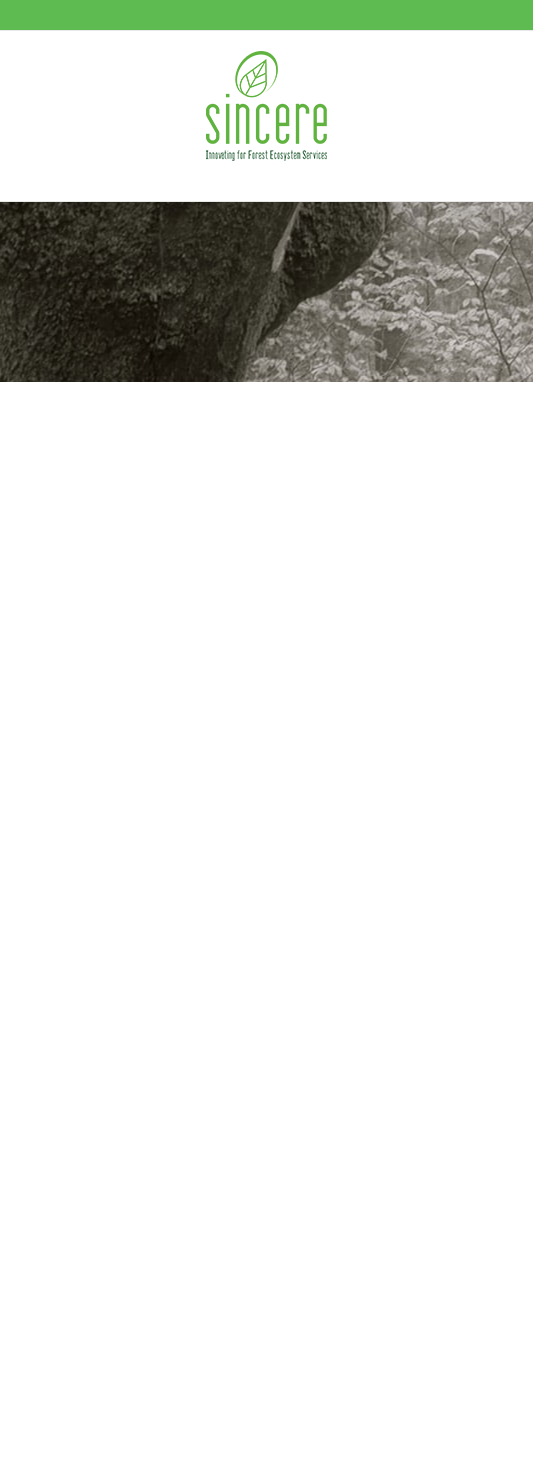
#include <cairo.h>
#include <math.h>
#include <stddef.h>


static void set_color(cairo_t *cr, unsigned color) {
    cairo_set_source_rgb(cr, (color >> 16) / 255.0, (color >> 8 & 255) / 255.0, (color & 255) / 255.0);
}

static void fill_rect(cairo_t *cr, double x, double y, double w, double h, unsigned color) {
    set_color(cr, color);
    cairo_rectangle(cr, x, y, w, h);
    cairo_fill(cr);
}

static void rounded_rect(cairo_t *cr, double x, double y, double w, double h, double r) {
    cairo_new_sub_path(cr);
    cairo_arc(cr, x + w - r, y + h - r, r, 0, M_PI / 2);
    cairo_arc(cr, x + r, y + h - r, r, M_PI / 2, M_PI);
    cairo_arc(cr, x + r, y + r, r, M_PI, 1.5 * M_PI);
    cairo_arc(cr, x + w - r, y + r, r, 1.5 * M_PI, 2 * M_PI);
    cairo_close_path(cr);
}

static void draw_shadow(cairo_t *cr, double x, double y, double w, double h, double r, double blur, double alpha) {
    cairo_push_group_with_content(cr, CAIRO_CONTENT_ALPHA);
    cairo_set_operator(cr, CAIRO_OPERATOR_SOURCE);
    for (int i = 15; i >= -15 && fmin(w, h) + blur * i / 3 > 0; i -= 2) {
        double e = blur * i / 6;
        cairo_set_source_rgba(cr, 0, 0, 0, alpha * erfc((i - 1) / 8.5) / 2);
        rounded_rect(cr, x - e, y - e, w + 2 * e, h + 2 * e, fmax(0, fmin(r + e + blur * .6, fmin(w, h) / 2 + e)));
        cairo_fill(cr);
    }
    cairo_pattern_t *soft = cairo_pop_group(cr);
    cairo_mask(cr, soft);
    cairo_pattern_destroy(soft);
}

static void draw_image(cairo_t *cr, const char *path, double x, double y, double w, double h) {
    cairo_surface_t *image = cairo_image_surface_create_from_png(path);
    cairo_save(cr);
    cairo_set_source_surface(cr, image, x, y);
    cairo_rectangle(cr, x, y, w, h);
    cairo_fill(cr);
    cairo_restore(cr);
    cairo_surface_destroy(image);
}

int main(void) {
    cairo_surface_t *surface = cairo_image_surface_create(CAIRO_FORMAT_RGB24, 533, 1461);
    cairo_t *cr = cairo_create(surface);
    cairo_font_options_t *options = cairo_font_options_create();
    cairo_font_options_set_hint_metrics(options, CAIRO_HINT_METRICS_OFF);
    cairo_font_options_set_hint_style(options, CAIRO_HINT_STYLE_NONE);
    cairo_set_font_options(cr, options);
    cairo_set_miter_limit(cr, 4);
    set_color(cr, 0xFFFFFF);
    cairo_paint(cr);
    draw_image(cr, "assets/img2.png", 0, 202, 533, 180);
    cairo_save(cr);
    cairo_rectangle(cr, 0, 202, 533, 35);
    cairo_clip(cr);
    set_color(cr, 0x000000);
    draw_shadow(cr, 2, 12, 529, 198, 0, 25, 0.14);
    cairo_restore(cr);
    fill_rect(cr, 0, 0, 533, 30, 0x5DBB51);
    fill_rect(cr, 0, 30, 533, 1, 0xE8E8E8);
    fill_rect(cr, 0, 201, 533, 1, 0xE8E8E8);
    draw_image(cr, "assets/img1.png", 206, 51, 121, 110);
    cairo_surface_write_to_png(surface, "output.png");
    cairo_font_options_destroy(options);
    cairo_destroy(cr);
    cairo_surface_destroy(surface);
    return 0;
}
